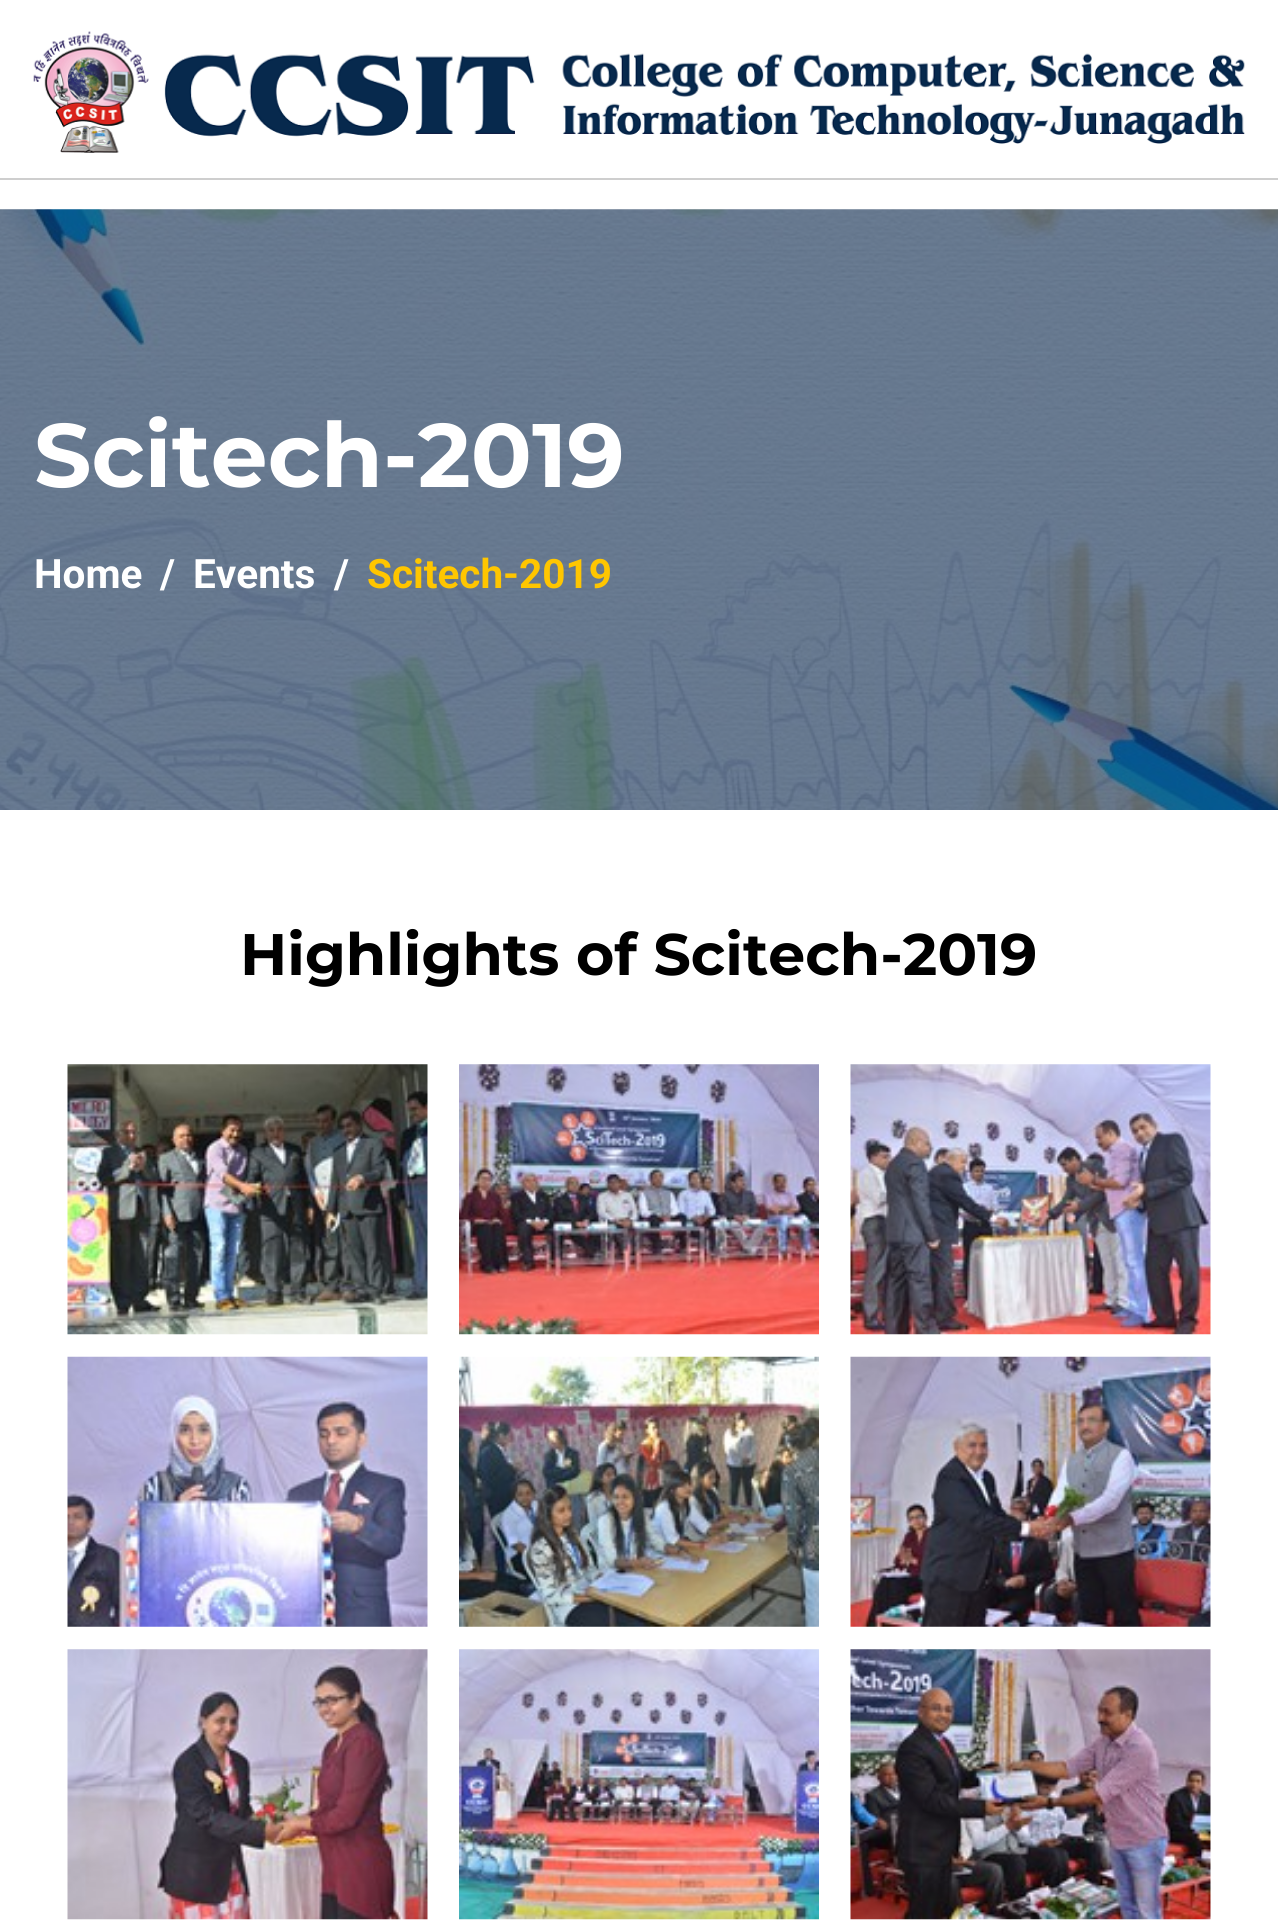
#include <cairo.h>
#include <math.h>
#include <stddef.h>


static void set_color(cairo_t *cr, unsigned color) {
    cairo_set_source_rgb(cr, (color >> 16) / 255.0, (color >> 8 & 255) / 255.0, (color & 255) / 255.0);
}

static void draw_text(cairo_t *cr, double x, double y, const char *s, const char *family, double size, int italic, int bold, unsigned color) {
    cairo_select_font_face(cr, family, italic ? CAIRO_FONT_SLANT_ITALIC : CAIRO_FONT_SLANT_NORMAL,
        bold ? CAIRO_FONT_WEIGHT_BOLD : CAIRO_FONT_WEIGHT_NORMAL);
    cairo_set_font_size(cr, size);
    set_color(cr, color);
    cairo_move_to(cr, x, y);
    cairo_show_text(cr, s);
}

static void fill_rect(cairo_t *cr, double x, double y, double w, double h, unsigned color) {
    set_color(cr, color);
    cairo_rectangle(cr, x, y, w, h);
    cairo_fill(cr);
}

static void draw_image(cairo_t *cr, const char *path, double x, double y, double w, double h) {
    cairo_surface_t *image = cairo_image_surface_create_from_png(path);
    cairo_save(cr);
    cairo_set_source_surface(cr, image, x, y);
    cairo_rectangle(cr, x, y, w, h);
    cairo_fill(cr);
    cairo_restore(cr);
    cairo_surface_destroy(image);
}

int main(void) {
    cairo_surface_t *surface = cairo_image_surface_create(CAIRO_FORMAT_RGB24, 1278, 1920);
    cairo_t *cr = cairo_create(surface);
    cairo_font_options_t *options = cairo_font_options_create();
    cairo_font_options_set_hint_metrics(options, CAIRO_HINT_METRICS_OFF);
    cairo_font_options_set_hint_style(options, CAIRO_HINT_STYLE_NONE);
    cairo_set_font_options(cr, options);
    cairo_set_miter_limit(cr, 4);
    set_color(cr, 0xFFFFFF);
    cairo_paint(cr);
    fill_rect(cr, 0, 178, 1278, 2, 0xCECECE);
    draw_image(cr, "assets/img1.png", 33, 31, 1212, 122);
    draw_image(cr, "assets/img2.png", 0, 209, 1278, 601);
    draw_text(cr, 34, 487, "Scitech-2019", "Montserrat", 90, 0, 1, 0xFFFFFF);
    draw_text(cr, 34, 588, "Home", "Roboto", 40.5, 0, 1, 0xFFFFFF);
    draw_text(cr, 160, 588, "/", "Roboto", 40.5, 0, 1, 0xFFFFFF);
    draw_text(cr, 193, 588, "Events", "Roboto", 40.5, 0, 1, 0xFFFFFF);
    draw_text(cr, 334, 588, "/", "Roboto", 40.5, 0, 1, 0xFFFFFF);
    draw_text(cr, 367, 588, "Scitech-2019", "Roboto", 40.5, 0, 1, 0xFFC600);
    draw_text(cr, 240, 975, "Highlights of Scitech-2019", "Montserrat", 58.5, 0, 1, 0x000000);
    draw_image(cr, "assets/img3.png", 67, 1064, 361, 271);
    draw_image(cr, "assets/img4.png", 459, 1064, 360, 271);
    draw_image(cr, "assets/img5.png", 850, 1064, 361, 271);
    draw_image(cr, "assets/img6.png", 67, 1356, 361, 271);
    draw_image(cr, "assets/img7.png", 459, 1356, 360, 271);
    draw_image(cr, "assets/img8.png", 850, 1356, 361, 271);
    draw_image(cr, "assets/img9.png", 67, 1649, 361, 271);
    draw_image(cr, "assets/img10.png", 459, 1649, 360, 271);
    draw_image(cr, "assets/img11.png", 850, 1649, 361, 271);
    cairo_surface_write_to_png(surface, "output.png");
    cairo_font_options_destroy(options);
    cairo_destroy(cr);
    cairo_surface_destroy(surface);
    return 0;
}
